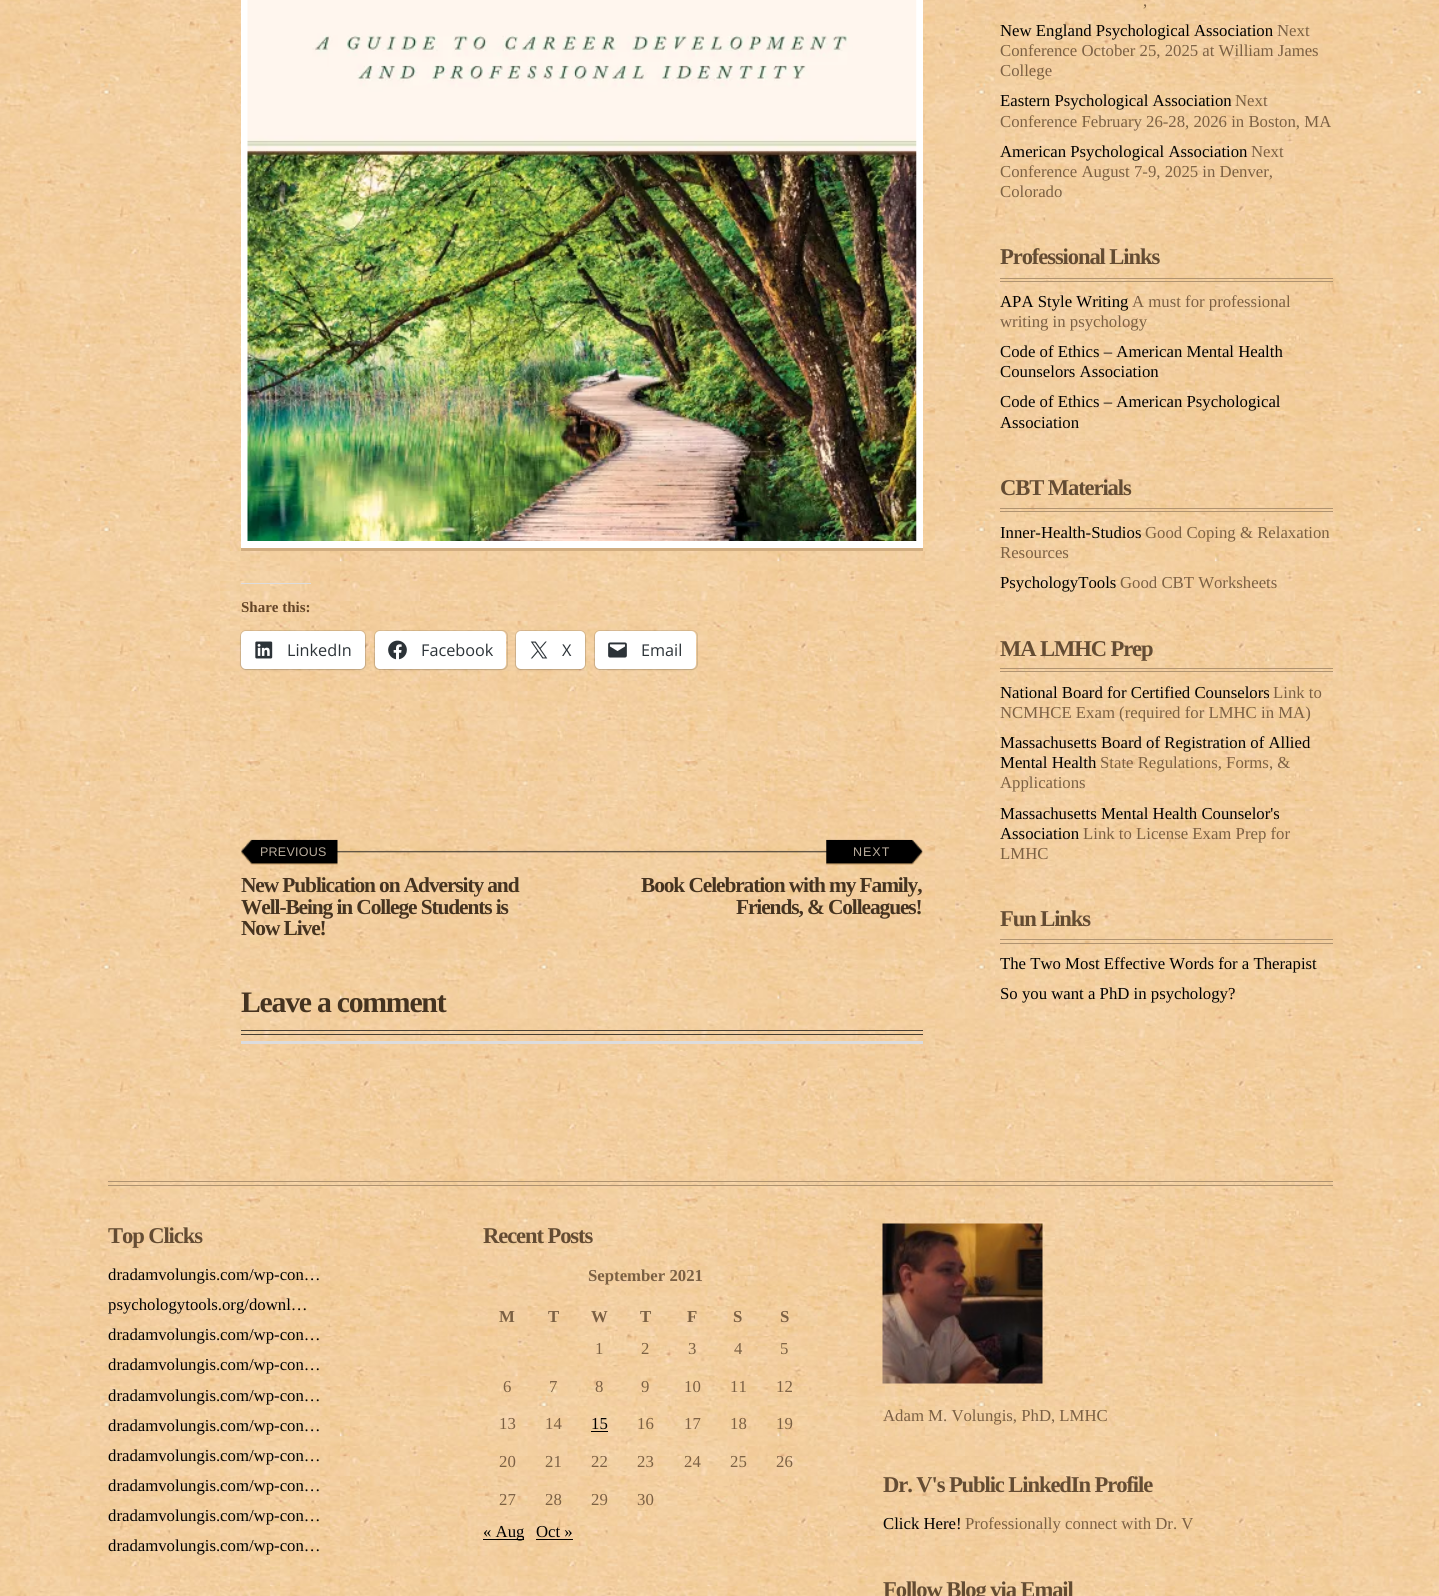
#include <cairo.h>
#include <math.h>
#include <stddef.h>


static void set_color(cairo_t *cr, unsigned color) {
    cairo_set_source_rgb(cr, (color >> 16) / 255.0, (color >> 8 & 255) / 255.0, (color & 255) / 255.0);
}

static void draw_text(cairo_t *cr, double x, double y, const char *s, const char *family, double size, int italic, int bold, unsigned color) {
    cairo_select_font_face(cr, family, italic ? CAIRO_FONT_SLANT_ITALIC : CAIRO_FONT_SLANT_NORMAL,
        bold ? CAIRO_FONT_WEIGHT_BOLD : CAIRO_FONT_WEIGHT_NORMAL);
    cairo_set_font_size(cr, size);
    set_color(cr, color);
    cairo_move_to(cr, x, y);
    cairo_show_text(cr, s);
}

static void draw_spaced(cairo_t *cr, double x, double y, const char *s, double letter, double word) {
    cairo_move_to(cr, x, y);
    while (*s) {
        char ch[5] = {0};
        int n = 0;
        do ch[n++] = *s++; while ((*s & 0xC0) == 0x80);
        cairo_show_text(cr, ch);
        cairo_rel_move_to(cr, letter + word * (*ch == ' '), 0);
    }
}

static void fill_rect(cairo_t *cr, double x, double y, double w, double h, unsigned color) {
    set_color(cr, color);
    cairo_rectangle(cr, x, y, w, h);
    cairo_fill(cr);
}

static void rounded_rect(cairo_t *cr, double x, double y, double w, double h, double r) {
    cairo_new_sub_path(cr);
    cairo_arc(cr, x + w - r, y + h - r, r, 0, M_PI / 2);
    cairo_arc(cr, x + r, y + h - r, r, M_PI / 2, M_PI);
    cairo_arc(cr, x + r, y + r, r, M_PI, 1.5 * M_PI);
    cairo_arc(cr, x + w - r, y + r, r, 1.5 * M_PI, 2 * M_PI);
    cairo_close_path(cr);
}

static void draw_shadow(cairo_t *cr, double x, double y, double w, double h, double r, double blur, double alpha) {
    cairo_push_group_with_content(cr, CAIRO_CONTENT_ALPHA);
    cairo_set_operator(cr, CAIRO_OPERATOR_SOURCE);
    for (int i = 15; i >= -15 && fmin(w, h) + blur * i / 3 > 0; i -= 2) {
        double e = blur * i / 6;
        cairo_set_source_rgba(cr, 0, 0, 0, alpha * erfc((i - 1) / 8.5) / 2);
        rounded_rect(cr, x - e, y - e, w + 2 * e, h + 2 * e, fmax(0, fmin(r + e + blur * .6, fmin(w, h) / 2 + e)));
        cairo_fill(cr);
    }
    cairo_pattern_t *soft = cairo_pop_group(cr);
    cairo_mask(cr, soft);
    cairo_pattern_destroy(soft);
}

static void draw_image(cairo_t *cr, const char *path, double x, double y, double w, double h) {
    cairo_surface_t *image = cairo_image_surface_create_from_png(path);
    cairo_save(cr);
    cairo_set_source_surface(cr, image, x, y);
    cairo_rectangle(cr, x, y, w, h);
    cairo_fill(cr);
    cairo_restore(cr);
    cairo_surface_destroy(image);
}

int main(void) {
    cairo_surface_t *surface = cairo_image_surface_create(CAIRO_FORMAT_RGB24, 1439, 1596);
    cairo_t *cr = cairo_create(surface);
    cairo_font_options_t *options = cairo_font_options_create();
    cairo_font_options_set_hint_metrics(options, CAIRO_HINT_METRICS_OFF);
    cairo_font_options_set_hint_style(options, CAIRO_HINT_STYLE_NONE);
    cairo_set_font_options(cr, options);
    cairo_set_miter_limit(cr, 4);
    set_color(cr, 0xFFFFFF);
    cairo_paint(cr);
    draw_image(cr, "assets/img1.png", 0, 0, 1439, 1596);
    fill_rect(cr, 241, 0, 682, 548, 0xFFFFFF);
    fill_rect(cr, 241, 548, 682, 3, 0xD1AD80);
    draw_image(cr, "assets/img2.png", 247, 0, 670, 541);
    fill_rect(cr, 241, 583, 70, 1, 0xDCDCDE);
    draw_text(cr, 241, 612, "Share this:", "Liberation Serif", 15, 0, 1, 0x644527);
    rounded_rect(cr, 240.5, 630.5, 125, 39, 5.5);
    cairo_set_source_rgba(cr, 0, 0, 0, 0.12);
    cairo_set_line_width(cr, 1);
    cairo_stroke(cr);
    set_color(cr, 0x000000);
    draw_shadow(cr, 241, 633, 124, 37, 5, 1, 0.12);
    set_color(cr, 0xFFFFFF);
    rounded_rect(cr, 241, 631, 124, 38, 5);
    cairo_fill(cr);
    draw_image(cr, "assets/img3.png", 255, 641, 18, 18);
    draw_text(cr, 287, 656, "LinkedIn", "Open Sans", 16.25, 0, 0, 0x2C3338);
    rounded_rect(cr, 374.5, 630.5, 133, 39, 5.5);
    cairo_set_source_rgba(cr, 0, 0, 0, 0.12);
    cairo_stroke(cr);
    set_color(cr, 0x000000);
    draw_shadow(cr, 375, 633, 131, 37, 5, 1, 0.12);
    set_color(cr, 0xFFFFFF);
    rounded_rect(cr, 375, 631, 131, 38, 5);
    cairo_fill(cr);
    draw_image(cr, "assets/img4.png", 388, 640, 19, 20);
    draw_text(cr, 421, 656, "Facebook", "Open Sans", 16.25, 0, 0, 0x2C3338);
    rounded_rect(cr, 515.5, 630.5, 70, 39, 5.5);
    cairo_set_source_rgba(cr, 0, 0, 0, 0.12);
    cairo_stroke(cr);
    set_color(cr, 0x000000);
    draw_shadow(cr, 516, 633, 69, 37, 5, 1, 0.12);
    set_color(cr, 0xFFFFFF);
    rounded_rect(cr, 516, 631, 69, 38, 5);
    cairo_fill(cr);
    draw_image(cr, "assets/img5.png", 530, 641, 18, 18);
    draw_text(cr, 562, 656, "X", "Open Sans", 16.25, 0, 0, 0x2C3338);
    rounded_rect(cr, 594.5, 630.5, 103, 39, 5.5);
    cairo_set_source_rgba(cr, 0, 0, 0, 0.12);
    cairo_stroke(cr);
    set_color(cr, 0x000000);
    draw_shadow(cr, 595, 633, 101, 37, 5, 1, 0.12);
    set_color(cr, 0xFFFFFF);
    rounded_rect(cr, 595, 631, 101, 38, 5);
    cairo_fill(cr);
    draw_image(cr, "assets/img6.png", 608, 642, 19, 16);
    draw_text(cr, 641, 656, "Email", "Open Sans", 16.25, 0, 0, 0x2C3338);
    draw_image(cr, "assets/img7.png", 337, 850, 490, 3);
    draw_image(cr, "assets/img8.png", 241, 839, 97, 26);
    cairo_select_font_face(cr, "Liberation Sans", CAIRO_FONT_SLANT_NORMAL, CAIRO_FONT_WEIGHT_NORMAL);
    cairo_set_font_size(cr, 12.5);
    set_color(cr, 0xBAAD9D);
    draw_spaced(cr, 260, 856, "PREVIOUS", 0.25, 0);
    cairo_select_font_face(cr, "Liberation Serif", CAIRO_FONT_SLANT_NORMAL, CAIRO_FONT_WEIGHT_BOLD);
    cairo_set_font_size(cr, 21.4);
    set_color(cr, 0x453320);
    draw_spaced(cr, 241, 892, "New Publication on Adversity and", -1.1, 0);
    draw_spaced(cr, 241, 914, "Well-Being in College Students is", -1.1, 0);
    draw_spaced(cr, 241, 935, "Now Live!", -1.1, 0);
    draw_image(cr, "assets/img9.png", 826, 839, 97, 26);
    cairo_select_font_face(cr, "Liberation Sans", CAIRO_FONT_SLANT_NORMAL, CAIRO_FONT_WEIGHT_NORMAL);
    cairo_set_font_size(cr, 12.5);
    set_color(cr, 0xBAAD9D);
    draw_spaced(cr, 853, 856, "NEXT", 1, 0);
    cairo_select_font_face(cr, "Liberation Serif", CAIRO_FONT_SLANT_NORMAL, CAIRO_FONT_WEIGHT_BOLD);
    cairo_set_font_size(cr, 21.4);
    set_color(cr, 0x453320);
    draw_spaced(cr, 641, 892, "Book Celebration with my Family,", -1.1, 0);
    draw_spaced(cr, 736, 914, "Friends, & Colleagues!", -1.1, 0);
    fill_rect(cr, 241, 1030, 682, 1, 0x483F32);
    fill_rect(cr, 241, 1034, 682, 1, 0x483F32);
    cairo_set_font_size(cr, 29.75);
    set_color(cr, 0x453320);
    draw_spaced(cr, 241, 1012, "Leave a comment", -1.25, 0);
    fill_rect(cr, 241, 1041, 682, 3, 0xDCDCDE);
    draw_text(cr, 1143, 6, ",", "Liberation Serif", 16.75, 0, 0, 0x7B6043);
    draw_text(cr, 1000, 36, "New England Psychological Association", "Liberation Serif", 16.75, 0, 0, 0x000000);
    draw_text(cr, 1277, 36, "Next", "Liberation Serif", 16.75, 0, 0, 0x7B6043);
    draw_text(cr, 1000, 56, "Conference October 25, 2025 at William James", "Liberation Serif", 16.75, 0, 0, 0x7B6043);
    draw_text(cr, 1000, 76, "College", "Liberation Serif", 16.75, 0, 0, 0x7B6043);
    draw_text(cr, 1000, 106, "Eastern Psychological Association", "Liberation Serif", 16.75, 0, 0, 0x000000);
    draw_text(cr, 1235, 106, "Next", "Liberation Serif", 16.75, 0, 0, 0x7B6043);
    draw_text(cr, 1000, 127, "Conference February 26-28, 2026 in Boston, MA", "Liberation Serif", 16.75, 0, 0, 0x7B6043);
    draw_text(cr, 1000, 157, "American Psychological Association", "Liberation Serif", 16.75, 0, 0, 0x000000);
    draw_text(cr, 1251, 157, "Next", "Liberation Serif", 16.75, 0, 0, 0x7B6043);
    draw_text(cr, 1000, 177, "Conference August 7-9, 2025 in Denver,", "Liberation Serif", 16.75, 0, 0, 0x7B6043);
    draw_text(cr, 1000, 197, "Colorado", "Liberation Serif", 16.75, 0, 0, 0x7B6043);
    fill_rect(cr, 1000, 278, 333, 1, 0xB09370);
    fill_rect(cr, 1000, 281, 333, 1, 0xB09370);
    cairo_select_font_face(cr, "Liberation Serif", CAIRO_FONT_SLANT_NORMAL, CAIRO_FONT_WEIGHT_BOLD);
    cairo_set_font_size(cr, 22.6);
    set_color(cr, 0x644C33);
    draw_spaced(cr, 1000, 264, "Professional Links", -1.1, 0);
    draw_text(cr, 1000, 307, "APA Style Writing", "Liberation Serif", 16.75, 0, 0, 0x000000);
    draw_text(cr, 1132, 307, "A must for professional", "Liberation Serif", 16.75, 0, 0, 0x7B6043);
    draw_text(cr, 1000, 327, "writing in psychology", "Liberation Serif", 16.75, 0, 0, 0x7B6043);
    draw_text(cr, 1000, 357, "Code of Ethics – American Mental Health", "Liberation Serif", 16.75, 0, 0, 0x000000);
    draw_text(cr, 1000, 377, "Counselors Association", "Liberation Serif", 16.75, 0, 0, 0x000000);
    draw_text(cr, 1000, 407, "Code of Ethics – American Psychological", "Liberation Serif", 16.75, 0, 0, 0x000000);
    draw_text(cr, 1000, 428, "Association", "Liberation Serif", 16.75, 0, 0, 0x000000);
    fill_rect(cr, 1000, 508, 333, 1, 0xB09370);
    fill_rect(cr, 1000, 511, 333, 1, 0xB09370);
    cairo_select_font_face(cr, "Liberation Serif", CAIRO_FONT_SLANT_NORMAL, CAIRO_FONT_WEIGHT_BOLD);
    cairo_set_font_size(cr, 22.6);
    set_color(cr, 0x644C33);
    draw_spaced(cr, 1000, 495, "CBT Materials", -1.1, 0);
    draw_text(cr, 1000, 538, "Inner-Health-Studios", "Liberation Serif", 16.75, 0, 0, 0x000000);
    draw_text(cr, 1145, 538, "Good Coping & Relaxation", "Liberation Serif", 16.75, 0, 0, 0x7B6043);
    draw_text(cr, 1000, 558, "Resources", "Liberation Serif", 16.75, 0, 0, 0x7B6043);
    draw_text(cr, 1000, 588, "PsychologyTools", "Liberation Serif", 16.75, 0, 0, 0x000000);
    draw_text(cr, 1120, 588, "Good CBT Worksheets", "Liberation Serif", 16.75, 0, 0, 0x7B6043);
    fill_rect(cr, 1000, 668, 333, 1, 0xB09370);
    fill_rect(cr, 1000, 671, 333, 1, 0xB09370);
    cairo_select_font_face(cr, "Liberation Serif", CAIRO_FONT_SLANT_NORMAL, CAIRO_FONT_WEIGHT_BOLD);
    cairo_set_font_size(cr, 22.6);
    set_color(cr, 0x644C33);
    draw_spaced(cr, 1000, 656, "MA LMHC Prep", -1.1, 0);
    draw_text(cr, 1000, 698, "National Board for Certified Counselors", "Liberation Serif", 16.75, 0, 0, 0x000000);
    draw_text(cr, 1273, 698, "Link to", "Liberation Serif", 16.75, 0, 0, 0x7B6043);
    draw_text(cr, 1000, 718, "NCMHCE Exam (required for LMHC in MA)", "Liberation Serif", 16.75, 0, 0, 0x7B6043);
    draw_text(cr, 1000, 748, "Massachusetts Board of Registration of Allied", "Liberation Serif", 16.75, 0, 0, 0x000000);
    draw_text(cr, 1000, 768, "Mental Health", "Liberation Serif", 16.75, 0, 0, 0x000000);
    draw_text(cr, 1100, 768, "State Regulations, Forms, &", "Liberation Serif", 16.75, 0, 0, 0x7B6043);
    draw_text(cr, 1000, 788, "Applications", "Liberation Serif", 16.75, 0, 0, 0x7B6043);
    draw_text(cr, 1000, 819, "Massachusetts Mental Health Counselor's", "Liberation Serif", 16.75, 0, 0, 0x000000);
    draw_text(cr, 1000, 839, "Association", "Liberation Serif", 16.75, 0, 0, 0x000000);
    draw_text(cr, 1083, 839, "Link to License Exam Prep for", "Liberation Serif", 16.75, 0, 0, 0x7B6043);
    draw_text(cr, 1000, 859, "LMHC", "Liberation Serif", 16.75, 0, 0, 0x7B6043);
    fill_rect(cr, 1000, 939, 333, 1, 0xB09370);
    fill_rect(cr, 1000, 943, 333, 1, 0xB09370);
    cairo_select_font_face(cr, "Liberation Serif", CAIRO_FONT_SLANT_NORMAL, CAIRO_FONT_WEIGHT_BOLD);
    cairo_set_font_size(cr, 22.6);
    set_color(cr, 0x644C33);
    draw_spaced(cr, 1000, 926, "Fun Links", -1.1, 0);
    draw_text(cr, 1000, 969, "The Two Most Effective Words for a Therapist", "Liberation Serif", 16.75, 0, 0, 0x000000);
    draw_text(cr, 1000, 999, "So you want a PhD in psychology?", "Liberation Serif", 16.75, 0, 0, 0x000000);
    fill_rect(cr, 108, 1181, 1225, 1, 0xB09370);
    fill_rect(cr, 108, 1185, 1225, 1, 0xB09370);
    cairo_select_font_face(cr, "Liberation Serif", CAIRO_FONT_SLANT_NORMAL, CAIRO_FONT_WEIGHT_BOLD);
    cairo_set_font_size(cr, 22.6);
    set_color(cr, 0x644C33);
    draw_spaced(cr, 108, 1243, "Top Clicks", -1.1, 0);
    draw_text(cr, 108, 1280, "dradamvolungis.com/wp-con…", "Liberation Serif", 16.75, 0, 0, 0x000000);
    draw_text(cr, 108, 1310, "psychologytools.org/downl…", "Liberation Serif", 16.75, 0, 0, 0x000000);
    draw_text(cr, 108, 1340, "dradamvolungis.com/wp-con…", "Liberation Serif", 16.75, 0, 0, 0x000000);
    draw_text(cr, 108, 1370, "dradamvolungis.com/wp-con…", "Liberation Serif", 16.75, 0, 0, 0x000000);
    draw_text(cr, 108, 1401, "dradamvolungis.com/wp-con…", "Liberation Serif", 16.75, 0, 0, 0x000000);
    draw_text(cr, 108, 1431, "dradamvolungis.com/wp-con…", "Liberation Serif", 16.75, 0, 0, 0x000000);
    draw_text(cr, 108, 1461, "dradamvolungis.com/wp-con…", "Liberation Serif", 16.75, 0, 0, 0x000000);
    draw_text(cr, 108, 1491, "dradamvolungis.com/wp-con…", "Liberation Serif", 16.75, 0, 0, 0x000000);
    draw_text(cr, 108, 1521, "dradamvolungis.com/wp-con…", "Liberation Serif", 16.75, 0, 0, 0x000000);
    draw_text(cr, 108, 1551, "dradamvolungis.com/wp-con…", "Liberation Serif", 16.75, 0, 0, 0x000000);
    cairo_select_font_face(cr, "Liberation Serif", CAIRO_FONT_SLANT_NORMAL, CAIRO_FONT_WEIGHT_BOLD);
    cairo_set_font_size(cr, 22.6);
    set_color(cr, 0x644C33);
    draw_spaced(cr, 483, 1243, "Recent Posts", -1.1, 0);
    draw_text(cr, 588, 1281, "September 2021", "Liberation Serif", 16.75, 0, 1, 0x7B6043);
    draw_text(cr, 499, 1322, "M", "Liberation Serif", 16.75, 0, 1, 0x7B6043);
    draw_text(cr, 548, 1322, "T", "Liberation Serif", 16.75, 0, 1, 0x7B6043);
    draw_text(cr, 591, 1322, "W", "Liberation Serif", 16.75, 0, 1, 0x7B6043);
    draw_text(cr, 640, 1322, "T", "Liberation Serif", 16.75, 0, 1, 0x7B6043);
    draw_text(cr, 687, 1322, "F", "Liberation Serif", 16.75, 0, 1, 0x7B6043);
    draw_text(cr, 733, 1322, "S", "Liberation Serif", 16.75, 0, 1, 0x7B6043);
    draw_text(cr, 780, 1322, "S", "Liberation Serif", 16.75, 0, 1, 0x7B6043);
    draw_text(cr, 595, 1354, "1", "Liberation Serif", 16.75, 0, 0, 0x7B6043);
    draw_text(cr, 641, 1354, "2", "Liberation Serif", 16.75, 0, 0, 0x7B6043);
    draw_text(cr, 688, 1354, "3", "Liberation Serif", 16.75, 0, 0, 0x7B6043);
    draw_text(cr, 734, 1354, "4", "Liberation Serif", 16.75, 0, 0, 0x7B6043);
    draw_text(cr, 780, 1354, "5", "Liberation Serif", 16.75, 0, 0, 0x7B6043);
    draw_text(cr, 503, 1392, "6", "Liberation Serif", 16.75, 0, 0, 0x7B6043);
    draw_text(cr, 549, 1392, "7", "Liberation Serif", 16.75, 0, 0, 0x7B6043);
    draw_text(cr, 595, 1392, "8", "Liberation Serif", 16.75, 0, 0, 0x7B6043);
    draw_text(cr, 641, 1392, "9", "Liberation Serif", 16.75, 0, 0, 0x7B6043);
    draw_text(cr, 684, 1392, "10", "Liberation Serif", 16.75, 0, 0, 0x7B6043);
    draw_text(cr, 730, 1392, "11", "Liberation Serif", 16.75, 0, 0, 0x7B6043);
    draw_text(cr, 776, 1392, "12", "Liberation Serif", 16.75, 0, 0, 0x7B6043);
    draw_text(cr, 499, 1429, "13", "Liberation Serif", 16.75, 0, 0, 0x7B6043);
    draw_text(cr, 545, 1429, "14", "Liberation Serif", 16.75, 0, 0, 0x7B6043);
    draw_text(cr, 591, 1429, "15", "Liberation Serif", 16.75, 0, 0, 0x000000);
    fill_rect(cr, 591, 1431, 17, 1, 0x000000);
    draw_text(cr, 637, 1429, "16", "Liberation Serif", 16.75, 0, 0, 0x7B6043);
    draw_text(cr, 684, 1429, "17", "Liberation Serif", 16.75, 0, 0, 0x7B6043);
    draw_text(cr, 730, 1429, "18", "Liberation Serif", 16.75, 0, 0, 0x7B6043);
    draw_text(cr, 776, 1429, "19", "Liberation Serif", 16.75, 0, 0, 0x7B6043);
    draw_text(cr, 499, 1467, "20", "Liberation Serif", 16.75, 0, 0, 0x7B6043);
    draw_text(cr, 545, 1467, "21", "Liberation Serif", 16.75, 0, 0, 0x7B6043);
    draw_text(cr, 591, 1467, "22", "Liberation Serif", 16.75, 0, 0, 0x7B6043);
    draw_text(cr, 637, 1467, "23", "Liberation Serif", 16.75, 0, 0, 0x7B6043);
    draw_text(cr, 684, 1467, "24", "Liberation Serif", 16.75, 0, 0, 0x7B6043);
    draw_text(cr, 730, 1467, "25", "Liberation Serif", 16.75, 0, 0, 0x7B6043);
    draw_text(cr, 776, 1467, "26", "Liberation Serif", 16.75, 0, 0, 0x7B6043);
    draw_text(cr, 499, 1505, "27", "Liberation Serif", 16.75, 0, 0, 0x7B6043);
    draw_text(cr, 545, 1505, "28", "Liberation Serif", 16.75, 0, 0, 0x7B6043);
    draw_text(cr, 591, 1505, "29", "Liberation Serif", 16.75, 0, 0, 0x7B6043);
    draw_text(cr, 637, 1505, "30", "Liberation Serif", 16.75, 0, 0, 0x7B6043);
    fill_rect(cr, 483, 1539, 41, 1, 0x000000);
    draw_text(cr, 483, 1537, "« Aug", "Liberation Serif", 16.75, 0, 0, 0x000000);
    draw_text(cr, 536, 1537, "Oct »", "Liberation Serif", 16.75, 0, 0, 0x000000);
    fill_rect(cr, 536, 1539, 37, 1, 0x000000);
    draw_image(cr, "assets/img10.png", 882, 1223, 161, 161);
    draw_text(cr, 883, 1421, "Adam M. Volungis, PhD, LMHC", "Liberation Serif", 16.75, 0, 0, 0x7B6043);
    cairo_select_font_face(cr, "Liberation Serif", CAIRO_FONT_SLANT_NORMAL, CAIRO_FONT_WEIGHT_BOLD);
    cairo_set_font_size(cr, 22.6);
    set_color(cr, 0x644C33);
    draw_spaced(cr, 883, 1492, "Dr. V's Public LinkedIn Profile", -1.1, 0);
    draw_text(cr, 883, 1529, "Click Here!", "Liberation Serif", 16.75, 0, 0, 0x000000);
    draw_text(cr, 965, 1529, "Professionally connect with Dr. V", "Liberation Serif", 16.75, 0, 0, 0x7B6043);
    cairo_select_font_face(cr, "Liberation Serif", CAIRO_FONT_SLANT_NORMAL, CAIRO_FONT_WEIGHT_BOLD);
    cairo_set_font_size(cr, 22.6);
    set_color(cr, 0x644C33);
    draw_spaced(cr, 883, 1597, "Follow Blog via Email", -1.1, 0);
    cairo_surface_write_to_png(surface, "output.png");
    cairo_font_options_destroy(options);
    cairo_destroy(cr);
    cairo_surface_destroy(surface);
    return 0;
}
